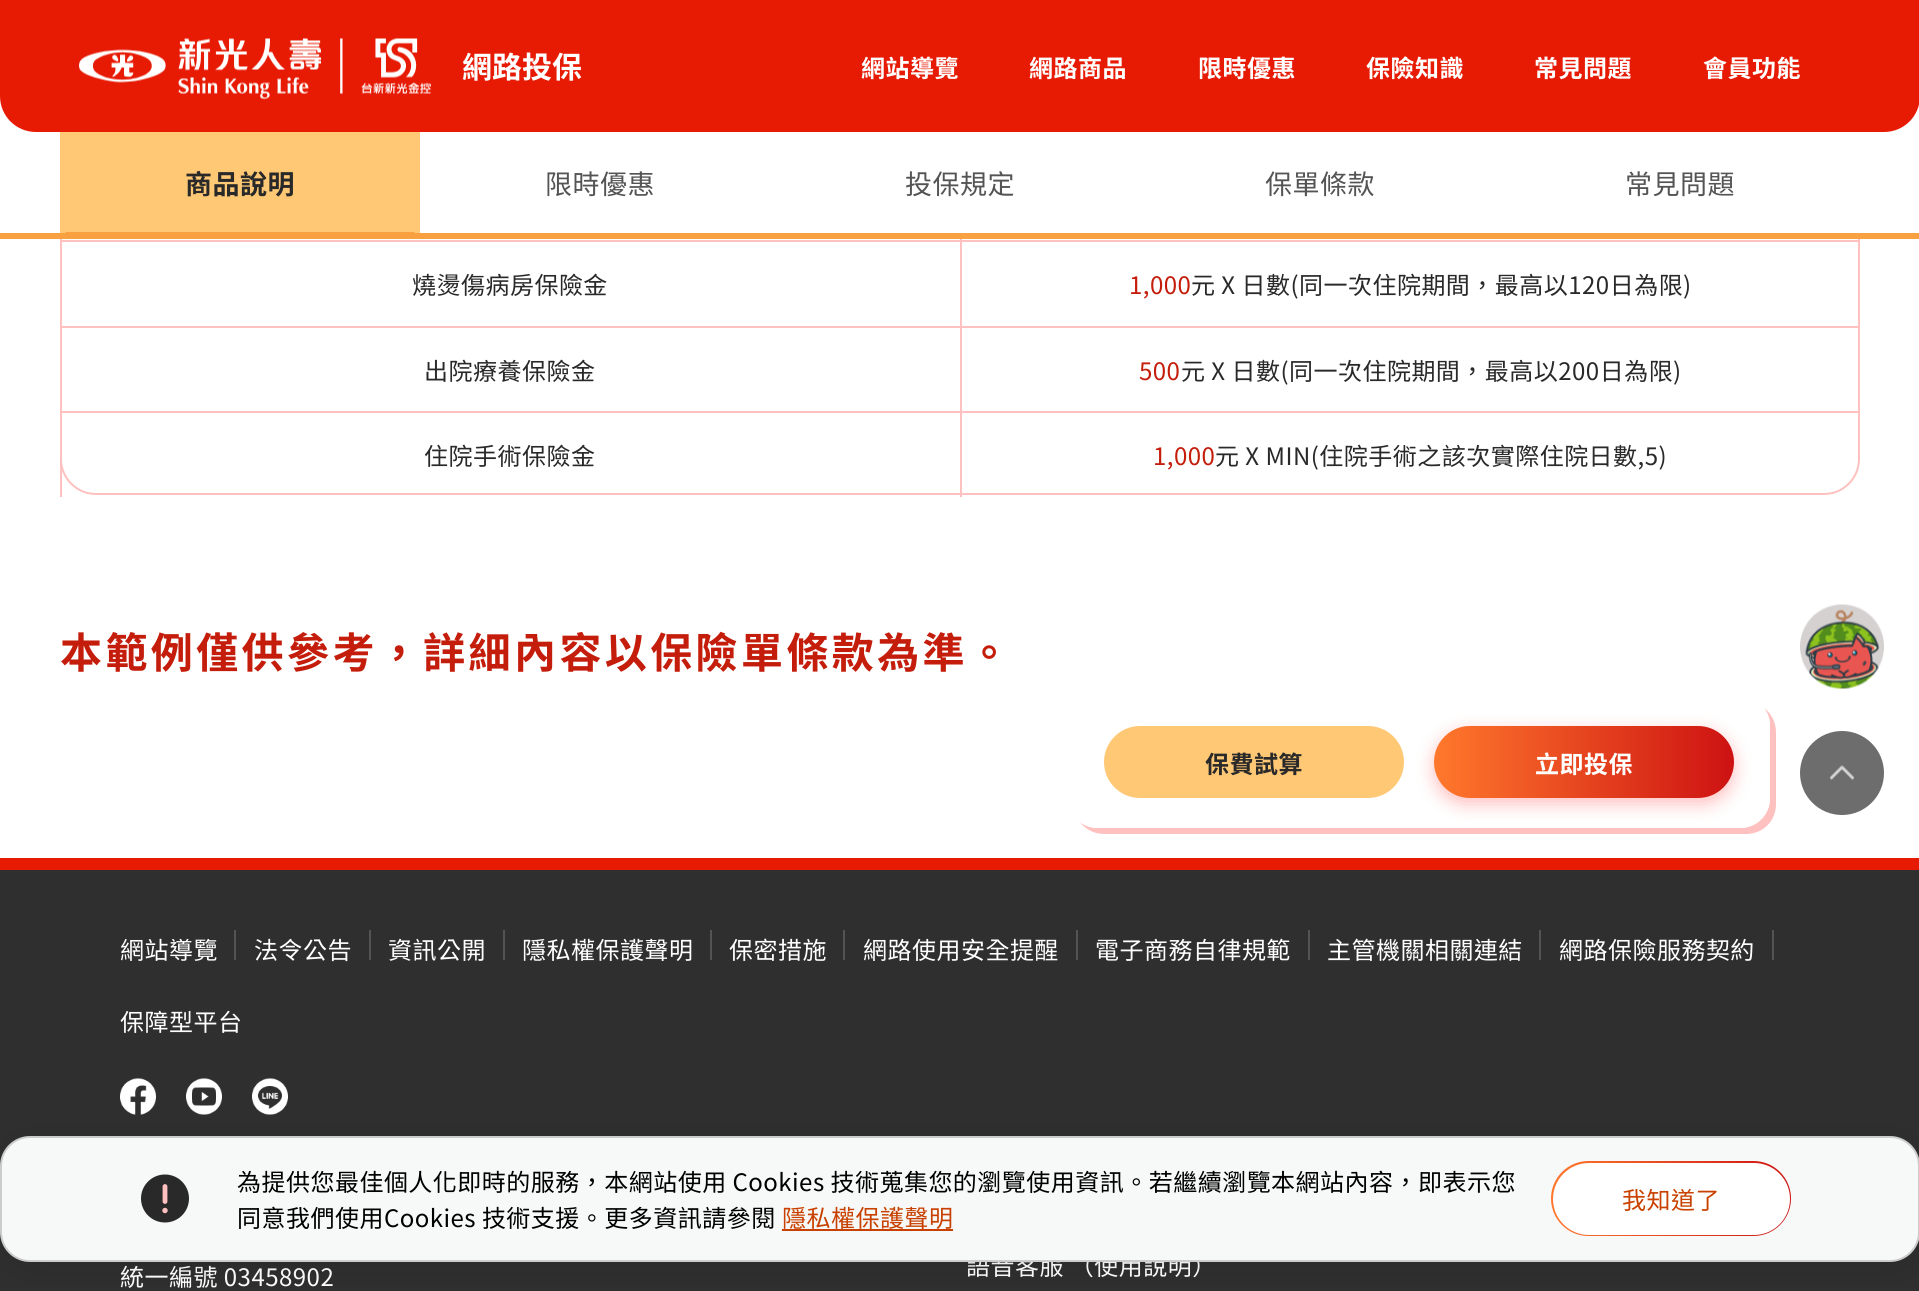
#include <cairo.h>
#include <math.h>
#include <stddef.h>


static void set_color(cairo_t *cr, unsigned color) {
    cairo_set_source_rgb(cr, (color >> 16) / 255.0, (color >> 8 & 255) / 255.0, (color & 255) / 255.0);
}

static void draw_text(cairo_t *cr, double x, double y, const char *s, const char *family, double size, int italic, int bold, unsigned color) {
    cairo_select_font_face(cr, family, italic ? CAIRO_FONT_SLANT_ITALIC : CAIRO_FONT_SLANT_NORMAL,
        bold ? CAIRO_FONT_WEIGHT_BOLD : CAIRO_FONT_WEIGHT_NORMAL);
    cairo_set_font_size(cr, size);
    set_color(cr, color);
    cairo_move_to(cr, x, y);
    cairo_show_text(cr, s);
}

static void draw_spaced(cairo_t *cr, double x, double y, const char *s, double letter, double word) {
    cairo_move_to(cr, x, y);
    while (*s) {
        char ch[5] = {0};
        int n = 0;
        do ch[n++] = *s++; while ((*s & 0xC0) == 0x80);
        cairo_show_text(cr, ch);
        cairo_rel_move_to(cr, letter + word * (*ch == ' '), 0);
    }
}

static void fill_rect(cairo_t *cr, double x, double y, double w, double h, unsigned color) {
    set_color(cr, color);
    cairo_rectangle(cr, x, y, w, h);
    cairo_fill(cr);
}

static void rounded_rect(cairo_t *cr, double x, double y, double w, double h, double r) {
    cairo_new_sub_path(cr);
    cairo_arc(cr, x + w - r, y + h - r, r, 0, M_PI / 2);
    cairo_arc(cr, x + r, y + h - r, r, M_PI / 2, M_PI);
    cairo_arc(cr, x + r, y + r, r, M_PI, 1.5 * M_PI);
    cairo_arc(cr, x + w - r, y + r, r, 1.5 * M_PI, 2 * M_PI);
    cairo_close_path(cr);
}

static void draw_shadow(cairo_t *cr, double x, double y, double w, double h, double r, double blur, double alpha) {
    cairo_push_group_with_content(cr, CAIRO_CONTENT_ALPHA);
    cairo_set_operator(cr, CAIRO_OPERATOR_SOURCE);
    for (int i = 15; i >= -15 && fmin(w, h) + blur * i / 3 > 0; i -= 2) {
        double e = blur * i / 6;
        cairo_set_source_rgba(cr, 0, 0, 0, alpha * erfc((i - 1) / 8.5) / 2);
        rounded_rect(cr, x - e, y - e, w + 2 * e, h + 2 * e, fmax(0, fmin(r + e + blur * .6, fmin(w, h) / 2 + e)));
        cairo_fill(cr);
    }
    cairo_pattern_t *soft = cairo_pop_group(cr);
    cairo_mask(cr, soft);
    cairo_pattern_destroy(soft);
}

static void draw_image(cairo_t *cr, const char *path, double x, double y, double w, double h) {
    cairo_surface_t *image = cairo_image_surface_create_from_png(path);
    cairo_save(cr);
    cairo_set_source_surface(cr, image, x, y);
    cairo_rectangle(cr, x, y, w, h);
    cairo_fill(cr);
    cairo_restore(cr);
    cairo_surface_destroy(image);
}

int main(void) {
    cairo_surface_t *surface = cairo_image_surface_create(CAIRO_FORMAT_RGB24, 1919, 1291);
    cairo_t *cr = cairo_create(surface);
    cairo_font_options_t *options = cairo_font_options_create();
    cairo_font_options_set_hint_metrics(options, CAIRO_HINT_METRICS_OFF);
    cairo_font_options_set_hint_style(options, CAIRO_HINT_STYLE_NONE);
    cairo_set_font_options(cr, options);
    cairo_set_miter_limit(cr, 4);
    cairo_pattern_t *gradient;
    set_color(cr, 0xFFFFFF);
    cairo_paint(cr);
    fill_rect(cr, 60, 240, 1800, 2, 0xFFC0C0);
    fill_rect(cr, 60, 326, 1800, 2, 0xFFC0C0);
    fill_rect(cr, 60, 411, 1800, 2, 0xFFC0C0);
    fill_rect(cr, 60, 459, 2, 38, 0xFFC0C0);
    fill_rect(cr, 960, 239, 2, 258, 0xFFC0C0);
    rounded_rect(cr, 61, -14, 1798, 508, 35);
    cairo_stroke(cr);
    set_color(cr, 0xE71A04);
    cairo_new_path(cr);
    cairo_move_to(cr, 0, 0);
    cairo_line_to(cr, 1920, 0);
    cairo_line_to(cr, 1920, 96);
    cairo_curve_to(cr, 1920, 116, 1904, 132, 1884, 132);
    cairo_line_to(cr, 36, 132);
    cairo_curve_to(cr, 16, 132, 0, 116, 0, 96);
    cairo_close_path(cr);
    cairo_fill(cr);
    draw_image(cr, "assets/img1.png", 79, 38, 352, 62);
    draw_text(cr, 462, 78, "網路投保", "Noto Sans TC", 30, 0, 1, 0xFFFFFF);
    cairo_set_font_size(cr, 24);
    draw_spaced(cr, 861, 77, "網站導覽", 0.48, 0);
    draw_spaced(cr, 1029, 77, "網路商品", 0.48, 0);
    draw_spaced(cr, 1198, 77, "限時優惠", 0.48, 0);
    draw_spaced(cr, 1366, 77, "保險知識", 0.48, 0);
    draw_spaced(cr, 1534, 77, "常見問題", 0.48, 0);
    draw_spaced(cr, 1703, 77, "會員功能", 0.48, 0);
    fill_rect(cr, 60, 132, 360, 101, 0xFFC875);
    set_color(cr, 0xF9A141);
    cairo_new_path(cr);
    cairo_move_to(cr, 420, 238);
    cairo_line_to(cr, 60, 238);
    cairo_line_to(cr, 66, 232);
    cairo_line_to(cr, 414, 232);
    cairo_close_path(cr);
    cairo_fill(cr);
    cairo_set_font_size(cr, 27);
    set_color(cr, 0x292929);
    draw_spaced(cr, 185, 194, "商品說明", 0.5, 0);
    cairo_select_font_face(cr, "Noto Sans TC", CAIRO_FONT_SLANT_NORMAL, CAIRO_FONT_WEIGHT_NORMAL);
    set_color(cr, 0x545454);
    draw_spaced(cr, 545, 194, "限時優惠", 0.5, 0);
    draw_spaced(cr, 905, 194, "投保規定", 0.5, 0);
    draw_spaced(cr, 1265, 194, "保單條款", 0.5, 0);
    fill_rect(cr, 1858, 132, 2, 101, 0xFFFFFF);
    set_color(cr, 0x545454);
    draw_spaced(cr, 1625, 194, "常見問題", 0.5, 0);
    fill_rect(cr, 0, 233, 1919, 6, 0xF9A141);
    cairo_set_font_size(cr, 24);
    set_color(cr, 0x292929);
    draw_spaced(cr, 412, 294, "燒燙傷病房保險金", 0.48, 0);
    set_color(cr, 0xC41D0B);
    draw_spaced(cr, 1129, 294, "1,000", 0.48, 0);
    set_color(cr, 0x292929);
    draw_spaced(cr, 1191, 294, "元 X 日數(同一次住院期間，最高以120日為限)", 0.48, 0);
    draw_spaced(cr, 424, 380, "出院療養保險金", 0.48, 0);
    set_color(cr, 0xC41D0B);
    draw_spaced(cr, 1139, 380, "500", 0.48, 0);
    set_color(cr, 0x292929);
    draw_spaced(cr, 1181, 380, "元 X 日數(同一次住院期間，最高以200日為限)", 0.48, 0);
    draw_spaced(cr, 424, 465, "住院手術保險金", 0.48, 0);
    set_color(cr, 0xC41D0B);
    draw_spaced(cr, 1153, 465, "1,000", 0.48, 0);
    set_color(cr, 0x292929);
    draw_spaced(cr, 1215, 465, "元 X MIN(住院手術之該次實際住院日數,5)", 0.48, 0);
    cairo_select_font_face(cr, "Noto Sans TC", CAIRO_FONT_SLANT_NORMAL, CAIRO_FONT_WEIGHT_BOLD);
    cairo_set_font_size(cr, 42);
    set_color(cr, 0xC41D0B);
    draw_spaced(cr, 60, 668, "本範例僅供參考，詳細內容以保險單條款為準。", 3.4, 0);
    set_color(cr, 0xFFC0C0);
    cairo_new_path(cr);
    cairo_move_to(cr, 1080, 822);
    cairo_curve_to(cr, 1085, 829, 1094, 834, 1104, 834);
    cairo_line_to(cr, 1746, 834);
    cairo_curve_to(cr, 1763, 834, 1776, 821, 1776, 804);
    cairo_line_to(cr, 1776, 732);
    cairo_curve_to(cr, 1776, 722, 1771, 713, 1764, 708);
    cairo_curve_to(cr, 1768, 713, 1770, 719, 1770, 726);
    cairo_line_to(cr, 1770, 798);
    cairo_curve_to(cr, 1770, 815, 1757, 828, 1740, 828);
    cairo_line_to(cr, 1098, 828);
    cairo_curve_to(cr, 1091, 828, 1085, 826, 1080, 822);
    cairo_close_path(cr);
    cairo_fill(cr);
    set_color(cr, 0xFFFFFF);
    rounded_rect(cr, 1068, 696, 702, 132, 30);
    cairo_fill(cr);
    set_color(cr, 0xFFC875);
    rounded_rect(cr, 1104, 726, 300, 72, 36);
    cairo_fill(cr);
    cairo_set_font_size(cr, 24);
    set_color(cr, 0x292929);
    draw_spaced(cr, 1205, 773, "保費試算", 0.48, 0);
    set_color(cr, 0xFF0303);
    draw_shadow(cr, 1434, 732, 300, 72, 36, 9, 0.25);
    gradient = cairo_pattern_create_linear(1434, 762, 1734, 762);
    cairo_pattern_add_color_stop_rgba(gradient, 0, 1, 0.471, 0.173, 1);
    cairo_pattern_add_color_stop_rgba(gradient, 1, 0.804, 0.071, 0.071, 1);
    cairo_set_source(cr, gradient);
    cairo_pattern_destroy(gradient);
    rounded_rect(cr, 1434, 726, 300, 72, 36);
    cairo_fill(cr);
    set_color(cr, 0xFFFFFF);
    draw_spaced(cr, 1535, 773, "立即投保", 0.48, 0);
    draw_image(cr, "assets/img2.png", 1800, 604, 84, 85);
    set_color(cr, 0x6D6D6D);
    cairo_arc(cr, 1842, 773, 42, 0, 2 * M_PI);
    cairo_fill(cr);
    draw_image(cr, "assets/img3.png", 1830, 765, 24, 15);
    fill_rect(cr, 0, 870, 1919, 421, 0x2F2F2F);
    fill_rect(cr, 0, 858, 1919, 12, 0xE71A04);
    cairo_select_font_face(cr, "Noto Sans TC", CAIRO_FONT_SLANT_NORMAL, CAIRO_FONT_WEIGHT_NORMAL);
    set_color(cr, 0xFFFFFF);
    draw_spaced(cr, 120, 959, "網站導覽", 0.48, 0);
    fill_rect(cr, 234, 930, 2, 30, 0x545454);
    set_color(cr, 0xFFFFFF);
    draw_spaced(cr, 254, 959, "法令公告", 0.48, 0);
    fill_rect(cr, 369, 930, 2, 30, 0x545454);
    set_color(cr, 0xFFFFFF);
    draw_spaced(cr, 388, 959, "資訊公開", 0.48, 0);
    fill_rect(cr, 503, 930, 2, 30, 0x545454);
    set_color(cr, 0xFFFFFF);
    draw_spaced(cr, 522, 959, "隱私權保護聲明", 0.48, 0);
    fill_rect(cr, 710, 930, 2, 30, 0x545454);
    set_color(cr, 0xFFFFFF);
    draw_spaced(cr, 729, 959, "保密措施", 0.48, 0);
    fill_rect(cr, 843, 930, 2, 30, 0x545454);
    set_color(cr, 0xFFFFFF);
    draw_spaced(cr, 863, 959, "網路使用安全提醒", 0.48, 0);
    fill_rect(cr, 1076, 930, 2, 30, 0x545454);
    set_color(cr, 0xFFFFFF);
    draw_spaced(cr, 1095, 959, "電子商務自律規範", 0.48, 0);
    fill_rect(cr, 1308, 930, 2, 30, 0x545454);
    set_color(cr, 0xFFFFFF);
    draw_spaced(cr, 1327, 959, "主管機關相關連結", 0.48, 0);
    fill_rect(cr, 1539, 930, 2, 30, 0x545454);
    set_color(cr, 0xFFFFFF);
    draw_spaced(cr, 1559, 959, "網路保險服務契約", 0.48, 0);
    fill_rect(cr, 1772, 930, 2, 30, 0x545454);
    set_color(cr, 0xFFFFFF);
    draw_spaced(cr, 120, 1031, "保障型平台", 0.48, 0);
    draw_image(cr, "assets/img4.png", 120, 1078, 36, 37);
    draw_image(cr, "assets/img5.png", 186, 1078, 36, 37);
    draw_image(cr, "assets/img6.png", 252, 1078, 36, 37);
    draw_spaced(cr, 120, 1286, "統一編號 03458902", 0.48, 0);
    draw_spaced(cr, 966, 1275, "語音客服 （使用說明）", 0.48, 0);
    set_color(cr, 0x000000);
    draw_shadow(cr, 3, 1142, 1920, 126, 30, 15, 0.1);
    set_color(cr, 0xF7F8F8);
    rounded_rect(cr, 1, 1137, 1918, 124, 29);
    cairo_fill_preserve(cr);
    set_color(cr, 0xCCCCCC);
    cairo_stroke(cr);
    set_color(cr, 0x292929);
    cairo_arc(cr, 165, 1198.5, 24, 0, 2 * M_PI);
    cairo_fill(cr);
    cairo_new_path(cr);
    cairo_move_to(cr, 165, 1186.5);
    cairo_line_to(cr, 165, 1201.5);
    set_color(cr, 0xFFC0C0);
    cairo_set_line_width(cr, 4.8);
    cairo_set_line_cap(cr, CAIRO_LINE_CAP_ROUND);
    cairo_set_line_join(cr, CAIRO_LINE_JOIN_ROUND);
    cairo_stroke(cr);
    cairo_new_path(cr);
    cairo_move_to(cr, 165, 1210.5);
    cairo_line_to(cr, 165, 1210.5);
    cairo_set_line_width(cr, 5.4);
    cairo_stroke(cr);
    set_color(cr, 0x000000);
    draw_spaced(cr, 237, 1191, "為提供您最佳個人化即時的服務，本網站使用 Cookies 技術蒐集您的瀏覽使用資訊。若繼續瀏覽本網站內容，即表示您", 0.48, 0);
    draw_spaced(cr, 237, 1227, "同意我們使用Cookies 技術支援。更多資訊請參閱", 0.48, 0);
    fill_rect(cr, 782, 1229, 171, 2, 0xC84100);
    draw_spaced(cr, 782, 1227, "隱私權保護聲明", 0.48, 0);
    gradient = cairo_pattern_create_linear(1551, 1199, 1791, 1199);
    cairo_pattern_add_color_stop_rgba(gradient, 0, 1, 0.471, 0.173, 1);
    cairo_pattern_add_color_stop_rgba(gradient, 1, 0.804, 0.071, 0.071, 1);
    cairo_set_source(cr, gradient);
    cairo_pattern_destroy(gradient);
    rounded_rect(cr, 1551, 1161, 240, 75, 37.5);
    cairo_fill(cr);
    set_color(cr, 0xFFFFFF);
    rounded_rect(cr, 1553, 1163, 237, 72, 36);
    cairo_fill(cr);
    set_color(cr, 0xC84100);
    draw_spaced(cr, 1622, 1209, "我知道了", 0.48, 0);
    cairo_surface_write_to_png(surface, "output.png");
    cairo_font_options_destroy(options);
    cairo_destroy(cr);
    cairo_surface_destroy(surface);
    return 0;
}
